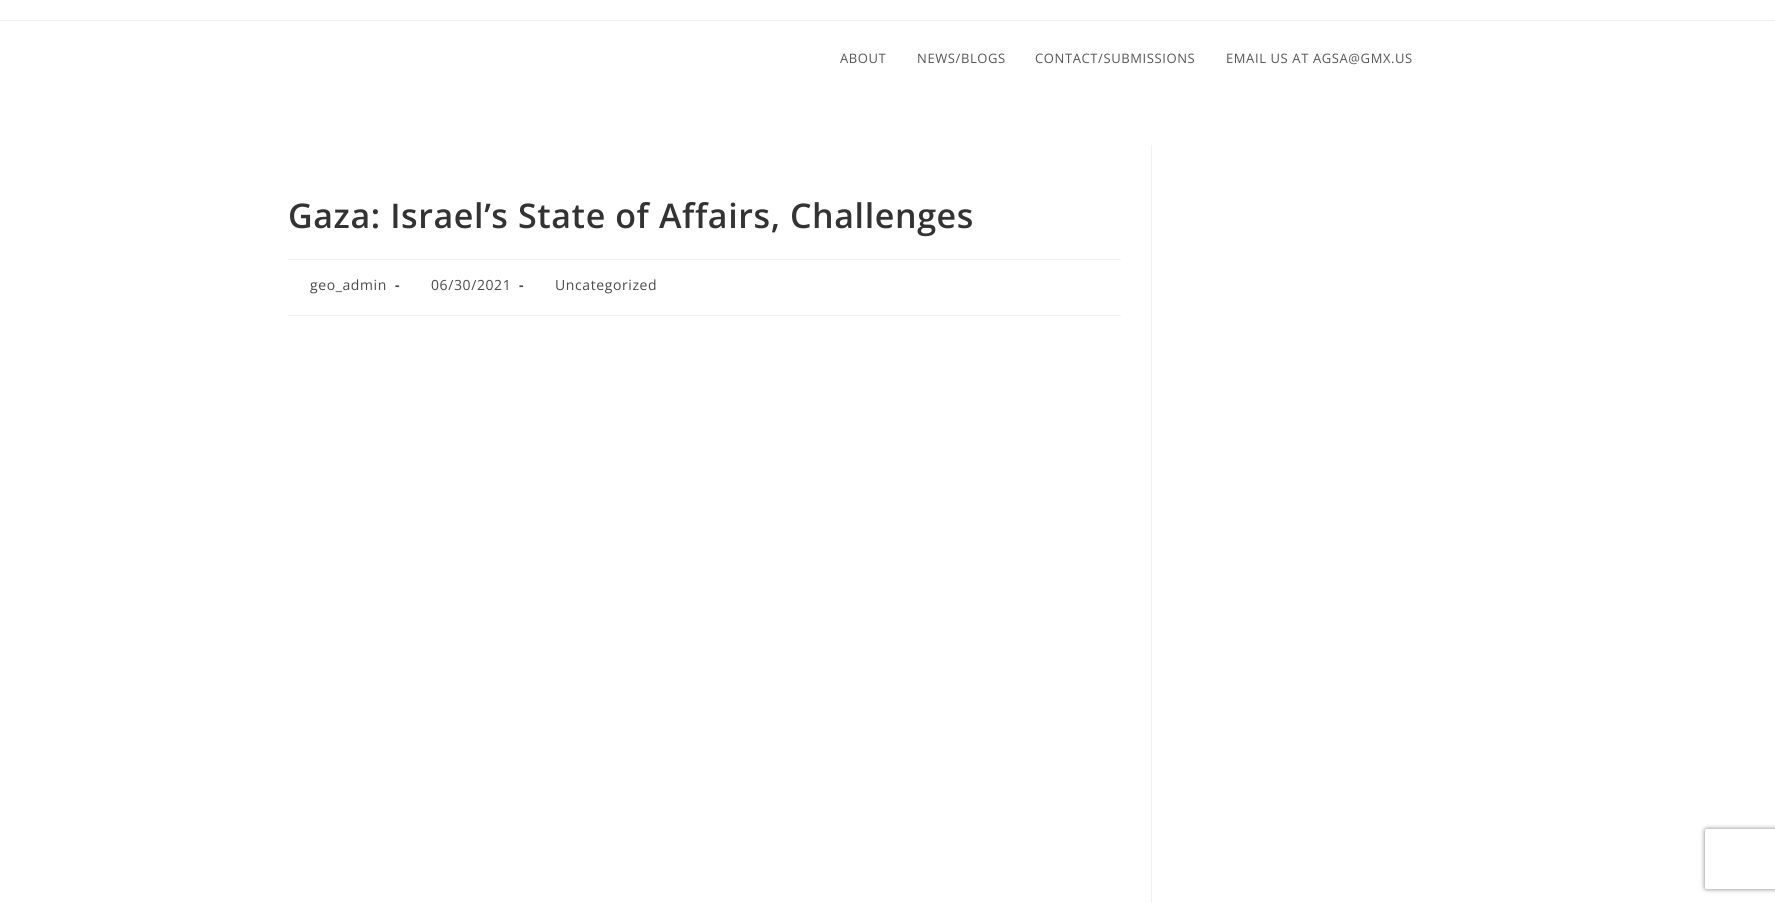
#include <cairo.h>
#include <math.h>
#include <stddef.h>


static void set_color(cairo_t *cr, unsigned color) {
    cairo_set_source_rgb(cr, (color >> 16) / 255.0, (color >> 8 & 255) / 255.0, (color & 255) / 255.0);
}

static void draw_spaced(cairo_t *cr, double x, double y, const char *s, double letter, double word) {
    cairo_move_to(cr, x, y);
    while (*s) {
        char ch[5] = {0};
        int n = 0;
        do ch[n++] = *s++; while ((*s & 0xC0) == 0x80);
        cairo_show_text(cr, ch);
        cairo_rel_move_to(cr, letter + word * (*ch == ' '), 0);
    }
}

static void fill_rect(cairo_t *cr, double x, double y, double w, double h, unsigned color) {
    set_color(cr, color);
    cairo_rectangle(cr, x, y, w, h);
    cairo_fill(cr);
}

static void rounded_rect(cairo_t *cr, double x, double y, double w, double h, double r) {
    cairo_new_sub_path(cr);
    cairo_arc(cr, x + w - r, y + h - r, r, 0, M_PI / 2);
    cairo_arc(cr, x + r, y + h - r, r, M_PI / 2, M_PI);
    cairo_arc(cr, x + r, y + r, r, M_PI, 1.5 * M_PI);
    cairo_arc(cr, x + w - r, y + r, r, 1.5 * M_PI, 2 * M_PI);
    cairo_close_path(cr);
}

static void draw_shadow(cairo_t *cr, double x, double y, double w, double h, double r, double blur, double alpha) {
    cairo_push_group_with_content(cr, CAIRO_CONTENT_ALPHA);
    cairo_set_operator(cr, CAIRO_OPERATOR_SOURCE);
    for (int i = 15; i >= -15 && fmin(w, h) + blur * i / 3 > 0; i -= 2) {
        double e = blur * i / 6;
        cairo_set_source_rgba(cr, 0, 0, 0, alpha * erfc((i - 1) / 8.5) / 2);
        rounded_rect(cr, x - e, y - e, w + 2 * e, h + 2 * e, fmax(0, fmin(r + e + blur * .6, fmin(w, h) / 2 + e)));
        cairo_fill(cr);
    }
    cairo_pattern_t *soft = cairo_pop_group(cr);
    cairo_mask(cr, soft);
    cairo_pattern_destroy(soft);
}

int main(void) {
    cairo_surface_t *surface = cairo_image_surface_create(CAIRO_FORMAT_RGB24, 1775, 903);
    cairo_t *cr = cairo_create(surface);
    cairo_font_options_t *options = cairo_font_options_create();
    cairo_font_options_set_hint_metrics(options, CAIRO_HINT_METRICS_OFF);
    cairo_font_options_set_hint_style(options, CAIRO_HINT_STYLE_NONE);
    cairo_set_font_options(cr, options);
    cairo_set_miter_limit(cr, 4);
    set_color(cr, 0xFFFFFF);
    cairo_paint(cr);
    fill_rect(cr, 0, 20, 1775, 1, 0xF1F1F1);
    cairo_select_font_face(cr, "Open Sans", CAIRO_FONT_SLANT_NORMAL, CAIRO_FONT_WEIGHT_NORMAL);
    cairo_set_font_size(cr, 13);
    set_color(cr, 0x555555);
    draw_spaced(cr, 840, 63, "ABOUT", 0.6, 0);
    draw_spaced(cr, 917, 63, "NEWS/BLOGS", 0.6, 0);
    draw_spaced(cr, 1035, 63, "CONTACT/SUBMISSIONS", 0.6, 0);
    draw_spaced(cr, 1226, 63, "EMAIL US AT AGSA@GMX.US", 0.6, 0);
    fill_rect(cr, 1151, 145, 1, 758, 0xF1F1F1);
    fill_rect(cr, 288, 259, 833, 1, 0xF1F1F1);
    cairo_select_font_face(cr, "Open Sans SemiBold", CAIRO_FONT_SLANT_NORMAL, CAIRO_FONT_WEIGHT_NORMAL);
    cairo_set_font_size(cr, 34);
    set_color(cr, 0x333333);
    draw_spaced(cr, 288, 228, "Gaza: Israel’s State of Affairs, Challenges", 0.6, 0);
    fill_rect(cr, 288, 315, 833, 1, 0xF1F1F1);
    cairo_select_font_face(cr, "Open Sans", CAIRO_FONT_SLANT_NORMAL, CAIRO_FONT_WEIGHT_NORMAL);
    cairo_set_font_size(cr, 14);
    set_color(cr, 0x4A4A4A);
    draw_spaced(cr, 310, 290, "geo_admin", 0.6, 0);
    cairo_select_font_face(cr, "Open Sans", CAIRO_FONT_SLANT_NORMAL, CAIRO_FONT_WEIGHT_BOLD);
    draw_spaced(cr, 395, 290, "-", 0.6, 0);
    cairo_select_font_face(cr, "Open Sans", CAIRO_FONT_SLANT_NORMAL, CAIRO_FONT_WEIGHT_NORMAL);
    draw_spaced(cr, 431, 290, "06/30/2021", 0.6, 0);
    cairo_select_font_face(cr, "Open Sans", CAIRO_FONT_SLANT_NORMAL, CAIRO_FONT_WEIGHT_BOLD);
    draw_spaced(cr, 519, 290, "-", 0.6, 0);
    cairo_select_font_face(cr, "Open Sans", CAIRO_FONT_SLANT_NORMAL, CAIRO_FONT_WEIGHT_NORMAL);
    draw_spaced(cr, 555, 290, "Uncategorized", 0.6, 0);
    cairo_save(cr);
    cairo_set_fill_rule(cr, CAIRO_FILL_RULE_EVEN_ODD);
    cairo_new_path(cr);
    cairo_move_to(cr, 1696, 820);
    cairo_line_to(cr, 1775, 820);
    cairo_line_to(cr, 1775, 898);
    cairo_line_to(cr, 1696, 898);
    cairo_close_path(cr);
    cairo_move_to(cr, 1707, 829);
    cairo_line_to(cr, 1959, 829);
    cairo_curve_to(cr, 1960, 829, 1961, 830, 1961, 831);
    cairo_line_to(cr, 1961, 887);
    cairo_curve_to(cr, 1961, 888, 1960, 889, 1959, 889);
    cairo_line_to(cr, 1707, 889);
    cairo_curve_to(cr, 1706, 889, 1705, 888, 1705, 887);
    cairo_line_to(cr, 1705, 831);
    cairo_curve_to(cr, 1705, 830, 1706, 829, 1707, 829);
    cairo_close_path(cr);
    cairo_clip(cr);
    set_color(cr, 0x808080);
    draw_shadow(cr, 1705, 829, 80, 60, 2, 2.5, 1);
    cairo_restore(cr);
    cairo_surface_write_to_png(surface, "output.png");
    cairo_font_options_destroy(options);
    cairo_destroy(cr);
    cairo_surface_destroy(surface);
    return 0;
}
